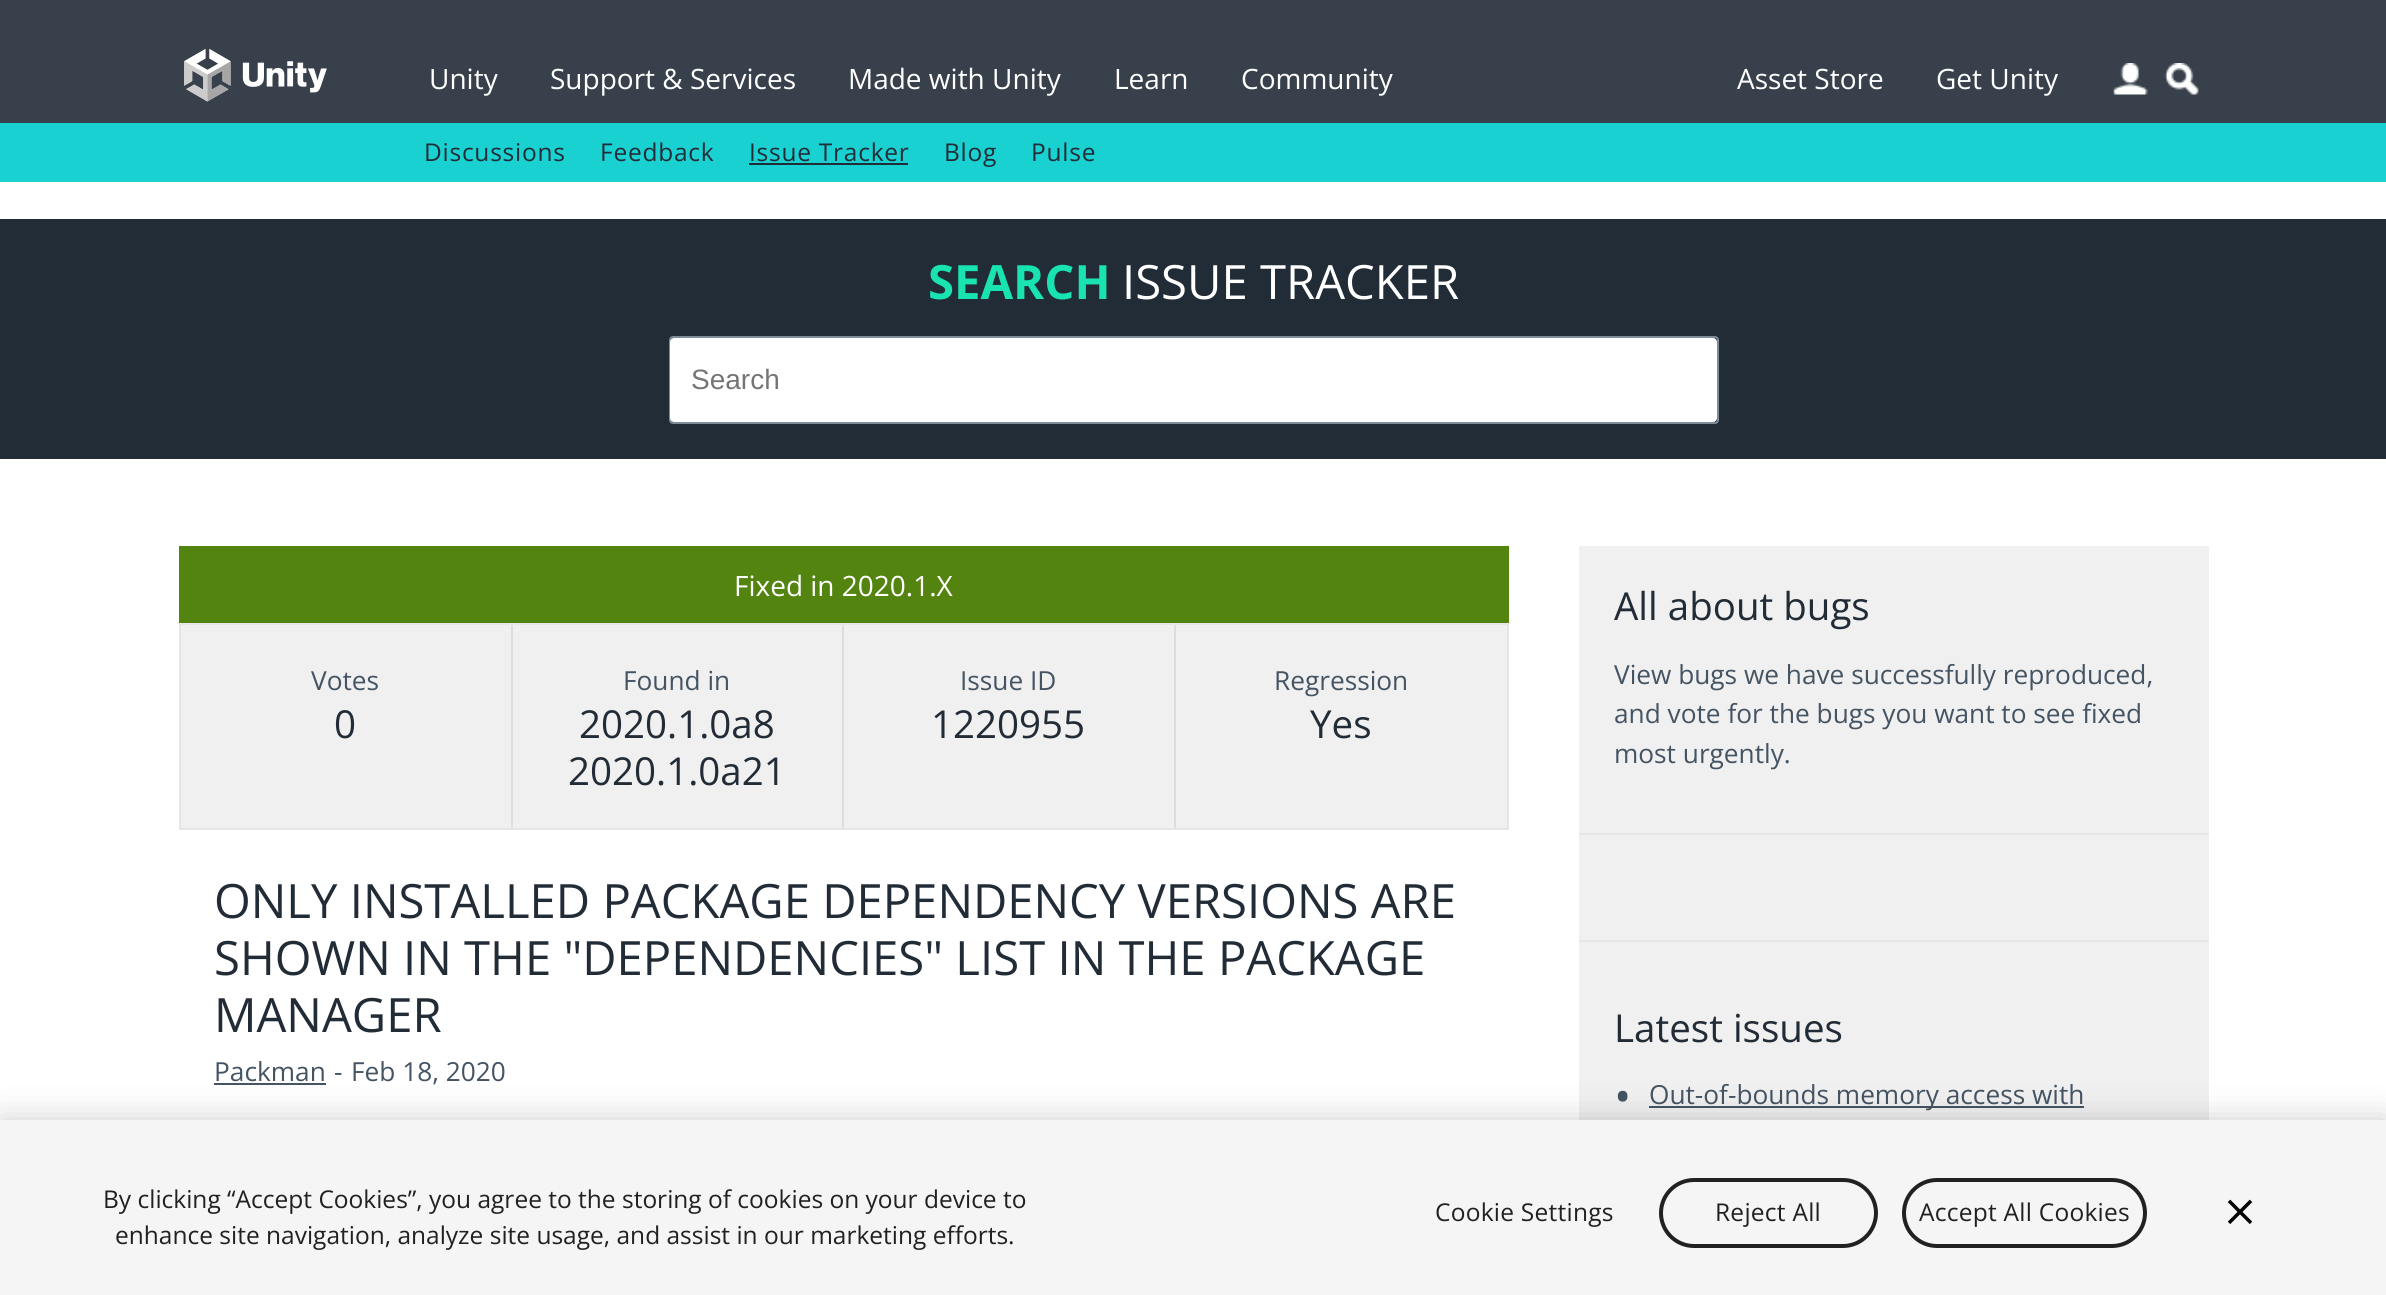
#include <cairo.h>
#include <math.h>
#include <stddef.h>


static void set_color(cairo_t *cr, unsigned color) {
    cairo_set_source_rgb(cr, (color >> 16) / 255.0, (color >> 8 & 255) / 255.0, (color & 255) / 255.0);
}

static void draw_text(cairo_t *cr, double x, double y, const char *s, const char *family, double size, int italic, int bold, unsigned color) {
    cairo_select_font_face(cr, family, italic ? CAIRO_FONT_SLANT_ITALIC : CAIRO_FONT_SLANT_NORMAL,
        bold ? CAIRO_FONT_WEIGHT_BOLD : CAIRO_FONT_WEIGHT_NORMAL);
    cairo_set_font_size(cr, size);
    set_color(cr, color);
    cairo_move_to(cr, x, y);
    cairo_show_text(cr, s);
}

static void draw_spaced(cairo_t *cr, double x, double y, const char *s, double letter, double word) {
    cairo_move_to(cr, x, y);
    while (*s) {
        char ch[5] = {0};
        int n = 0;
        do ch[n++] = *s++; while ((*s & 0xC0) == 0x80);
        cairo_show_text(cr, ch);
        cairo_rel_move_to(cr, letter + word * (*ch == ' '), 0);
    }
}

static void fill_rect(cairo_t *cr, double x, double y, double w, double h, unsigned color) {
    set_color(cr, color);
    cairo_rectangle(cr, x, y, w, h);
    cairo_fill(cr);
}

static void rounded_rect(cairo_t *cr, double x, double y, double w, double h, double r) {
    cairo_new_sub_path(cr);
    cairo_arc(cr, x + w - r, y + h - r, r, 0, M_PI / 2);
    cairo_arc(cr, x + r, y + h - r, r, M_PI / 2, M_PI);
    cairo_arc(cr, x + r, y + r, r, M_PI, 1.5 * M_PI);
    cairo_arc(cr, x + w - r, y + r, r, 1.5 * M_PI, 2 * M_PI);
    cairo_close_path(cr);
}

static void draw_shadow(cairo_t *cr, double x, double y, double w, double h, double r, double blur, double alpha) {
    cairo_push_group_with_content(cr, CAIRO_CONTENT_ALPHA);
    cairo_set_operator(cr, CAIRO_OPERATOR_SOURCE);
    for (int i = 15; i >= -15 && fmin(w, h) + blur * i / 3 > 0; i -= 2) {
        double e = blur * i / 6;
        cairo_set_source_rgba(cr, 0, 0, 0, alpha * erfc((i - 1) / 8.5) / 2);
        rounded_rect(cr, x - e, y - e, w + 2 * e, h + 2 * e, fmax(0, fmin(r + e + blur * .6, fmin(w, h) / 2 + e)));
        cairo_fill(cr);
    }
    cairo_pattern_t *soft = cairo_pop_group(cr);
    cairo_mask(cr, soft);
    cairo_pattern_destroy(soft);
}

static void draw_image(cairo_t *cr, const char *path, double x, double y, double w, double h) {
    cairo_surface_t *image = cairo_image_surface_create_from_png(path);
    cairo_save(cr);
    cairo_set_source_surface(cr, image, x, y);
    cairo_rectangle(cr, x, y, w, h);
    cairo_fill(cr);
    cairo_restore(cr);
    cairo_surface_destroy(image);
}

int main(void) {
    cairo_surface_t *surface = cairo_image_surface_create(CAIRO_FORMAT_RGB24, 2386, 1295);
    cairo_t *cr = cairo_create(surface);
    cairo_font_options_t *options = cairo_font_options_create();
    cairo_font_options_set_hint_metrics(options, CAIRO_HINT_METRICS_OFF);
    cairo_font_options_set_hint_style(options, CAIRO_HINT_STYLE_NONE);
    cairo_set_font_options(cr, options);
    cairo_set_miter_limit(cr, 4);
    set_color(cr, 0xFFFFFF);
    cairo_paint(cr);
    fill_rect(cr, 0, 0, 2386, 123, 0x38414B);
    draw_image(cr, "assets/img1.png", 184, 49, 143, 53);
    draw_text(cr, 429, 89, "Unity", "Open Sans", 28, 0, 0, 0xFFFFFF);
    draw_text(cr, 550, 89, "Support & Services", "Open Sans", 28, 0, 0, 0xFFFFFF);
    draw_text(cr, 848, 89, "Made with Unity", "Open Sans", 28, 0, 0, 0xFFFFFF);
    draw_text(cr, 1114, 89, "Learn", "Open Sans", 28, 0, 0, 0xFFFFFF);
    draw_text(cr, 1241, 89, "Community", "Open Sans", 28, 0, 0, 0xFFFFFF);
    draw_text(cr, 1737, 89, "Asset Store", "Open Sans", 28, 0, 0, 0xFFFFFF);
    draw_text(cr, 1936, 89, "Get Unity", "Open Sans", 28, 0, 0, 0xFFFFFF);
    draw_image(cr, "assets/img2.png", 2113, 63, 35, 32);
    draw_image(cr, "assets/img3.png", 2164, 63, 35, 32);
    fill_rect(cr, 0, 123, 2386, 59, 0x1AD1D1);
    cairo_set_font_size(cr, 24.5);
    set_color(cr, 0x222C37);
    draw_spaced(cr, 424, 161, "Discussions", 0.75, 0);
    draw_spaced(cr, 600, 161, "Feedback", 0.75, 0);
    draw_spaced(cr, 749, 161, "Issue Tracker", 0.75, 0);
    fill_rect(cr, 749, 163, 159, 2, 0x222C37);
    draw_spaced(cr, 944, 161, "Blog", 0.75, 0);
    draw_spaced(cr, 1031, 161, "Pulse", 0.75, 0);
    fill_rect(cr, 0, 219, 2386, 240, 0x222C37);
    draw_text(cr, 928, 299, "SEARCH", "Open Sans", 47.25, 0, 1, 0x19E3B1);
    draw_text(cr, 1122, 299, "ISSUE TRACKER", "Open Sans", 47.25, 0, 0, 0xFFFFFF);
    rounded_rect(cr, 670, 337, 1048, 86, 3);
    set_color(cr, 0x7E8C9A);
    cairo_stroke(cr);
    set_color(cr, 0xFFFFFF);
    rounded_rect(cr, 670, 338, 1047, 84, 4);
    cairo_fill(cr);
    draw_text(cr, 691, 389, "Search", "Liberation Sans", 28, 0, 0, 0x757575);
    fill_rect(cr, 179, 546, 1330, 77, 0x52840F);
    draw_text(cr, 734, 596, "Fixed in 2020.1.X", "Open Sans", 28, 0, 0, 0xFFFFFF);
    set_color(cr, 0xF0F0F0);
    cairo_rectangle(cr, 180, 624, 1328, 205);
    cairo_fill_preserve(cr);
    set_color(cr, 0xE6E6E6);
    cairo_stroke(cr);
    fill_rect(cr, 511, 625, 2, 203, 0xDDDDDD);
    draw_text(cr, 311, 690, "Votes", "Open Sans", 26.25, 0, 0, 0x455463);
    draw_text(cr, 334, 738, "0", "Open Sans", 38.5, 0, 0, 0x222C37);
    fill_rect(cr, 842, 625, 2, 203, 0xDDDDDD);
    draw_text(cr, 623, 690, "Found in", "Open Sans", 26.25, 0, 0, 0x455463);
    draw_text(cr, 579, 738, "2020.1.0a8", "Open Sans", 38.5, 0, 0, 0x222C37);
    draw_text(cr, 568, 785, "2020.1.0a21", "Open Sans", 38.5, 0, 0, 0x222C37);
    fill_rect(cr, 1174, 625, 2, 203, 0xDDDDDD);
    draw_text(cr, 960, 690, "Issue ID", "Open Sans", 26.25, 0, 0, 0x455463);
    draw_text(cr, 931, 738, "1220955", "Open Sans", 38.5, 0, 0, 0x222C37);
    draw_text(cr, 1274, 690, "Regression", "Open Sans", 26.25, 0, 0, 0x455463);
    draw_text(cr, 1310, 738, "Yes", "Open Sans", 38.5, 0, 0, 0x222C37);
    draw_text(cr, 214, 918, "ONLY INSTALLED PACKAGE DEPENDENCY VERSIONS ARE", "Open Sans", 47.25, 0, 0, 0x222C37);
    draw_text(cr, 214, 975, "SHOWN IN THE \"DEPENDENCIES\" LIST IN THE PACKAGE", "Open Sans", 47.25, 0, 0, 0x222C37);
    draw_text(cr, 214, 1032, "MANAGER", "Open Sans", 47.25, 0, 0, 0x222C37);
    draw_text(cr, 214, 1081, "Packman", "Open Sans", 26.25, 0, 0, 0x455463);
    fill_rect(cr, 214, 1083, 112, 2, 0x455463);
    draw_text(cr, 334, 1081, "-", "Open Sans", 26.25, 0, 0, 0x455463);
    draw_text(cr, 351, 1081, "Feb 18, 2020", "Open Sans", 26.25, 0, 0, 0x455463);
    fill_rect(cr, 1579, 546, 630, 574, 0xF0F0F0);
    fill_rect(cr, 1579, 833, 630, 2, 0xE6E6E6);
    draw_text(cr, 1614, 620, "All about bugs", "Open Sans", 38.5, 0, 0, 0x222C37);
    draw_text(cr, 1614, 684, "View bugs we have successfully reproduced,", "Open Sans", 26.25, 0, 0, 0x455463);
    draw_text(cr, 1614, 723, "and vote for the bugs you want to see fixed", "Open Sans", 26.25, 0, 0, 0x455463);
    draw_text(cr, 1614, 763, "most urgently.", "Open Sans", 26.25, 0, 0, 0x455463);
    fill_rect(cr, 1579, 940, 630, 2, 0xE6E6E6);
    draw_text(cr, 1614, 1042, "Latest issues", "Open Sans", 38.5, 0, 0, 0x222C37);
    draw_text(cr, 1614, 1113, "•", "Open Sans", 46, 0, 0, 0x455463);
    fill_rect(cr, 1649, 1106, 435, 2, 0x455463);
    draw_text(cr, 1649, 1104, "Out-of-bounds memory access with", "Open Sans", 26.25, 0, 0, 0x455463);
    set_color(cr, 0x000000);
    draw_shadow(cr, 0, 1120, 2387, 175, 0, 16, 0.2);
    fill_rect(cr, 0, 1120, 2386, 175, 0xF5F5F5);
    draw_text(cr, 103, 1208, "By clicking “Accept Cookies”, you agree to the storing of cookies on your device to", "Open Sans", 24.5, 0, 0, 0x212121);
    draw_text(cr, 115, 1244, "enhance site navigation, analyze site usage, and assist in our marketing efforts.", "Open Sans", 24.5, 0, 0, 0x212121);
    draw_spaced(cr, 1435, 1221, "Cookie Settings", 0.25, 0);
    rounded_rect(cr, 1661, 1180, 215, 66, 33);
    cairo_set_line_width(cr, 4);
    cairo_stroke(cr);
    draw_spaced(cr, 1715, 1221, "Reject All", 0.25, 0);
    rounded_rect(cr, 1904, 1180, 241, 66, 33);
    cairo_stroke(cr);
    draw_spaced(cr, 1919, 1221, "Accept All Cookies", 0.25, 0);
    draw_image(cr, "assets/img4.png", 2227, 1199, 26, 25);
    cairo_surface_write_to_png(surface, "output.png");
    cairo_font_options_destroy(options);
    cairo_destroy(cr);
    cairo_surface_destroy(surface);
    return 0;
}
